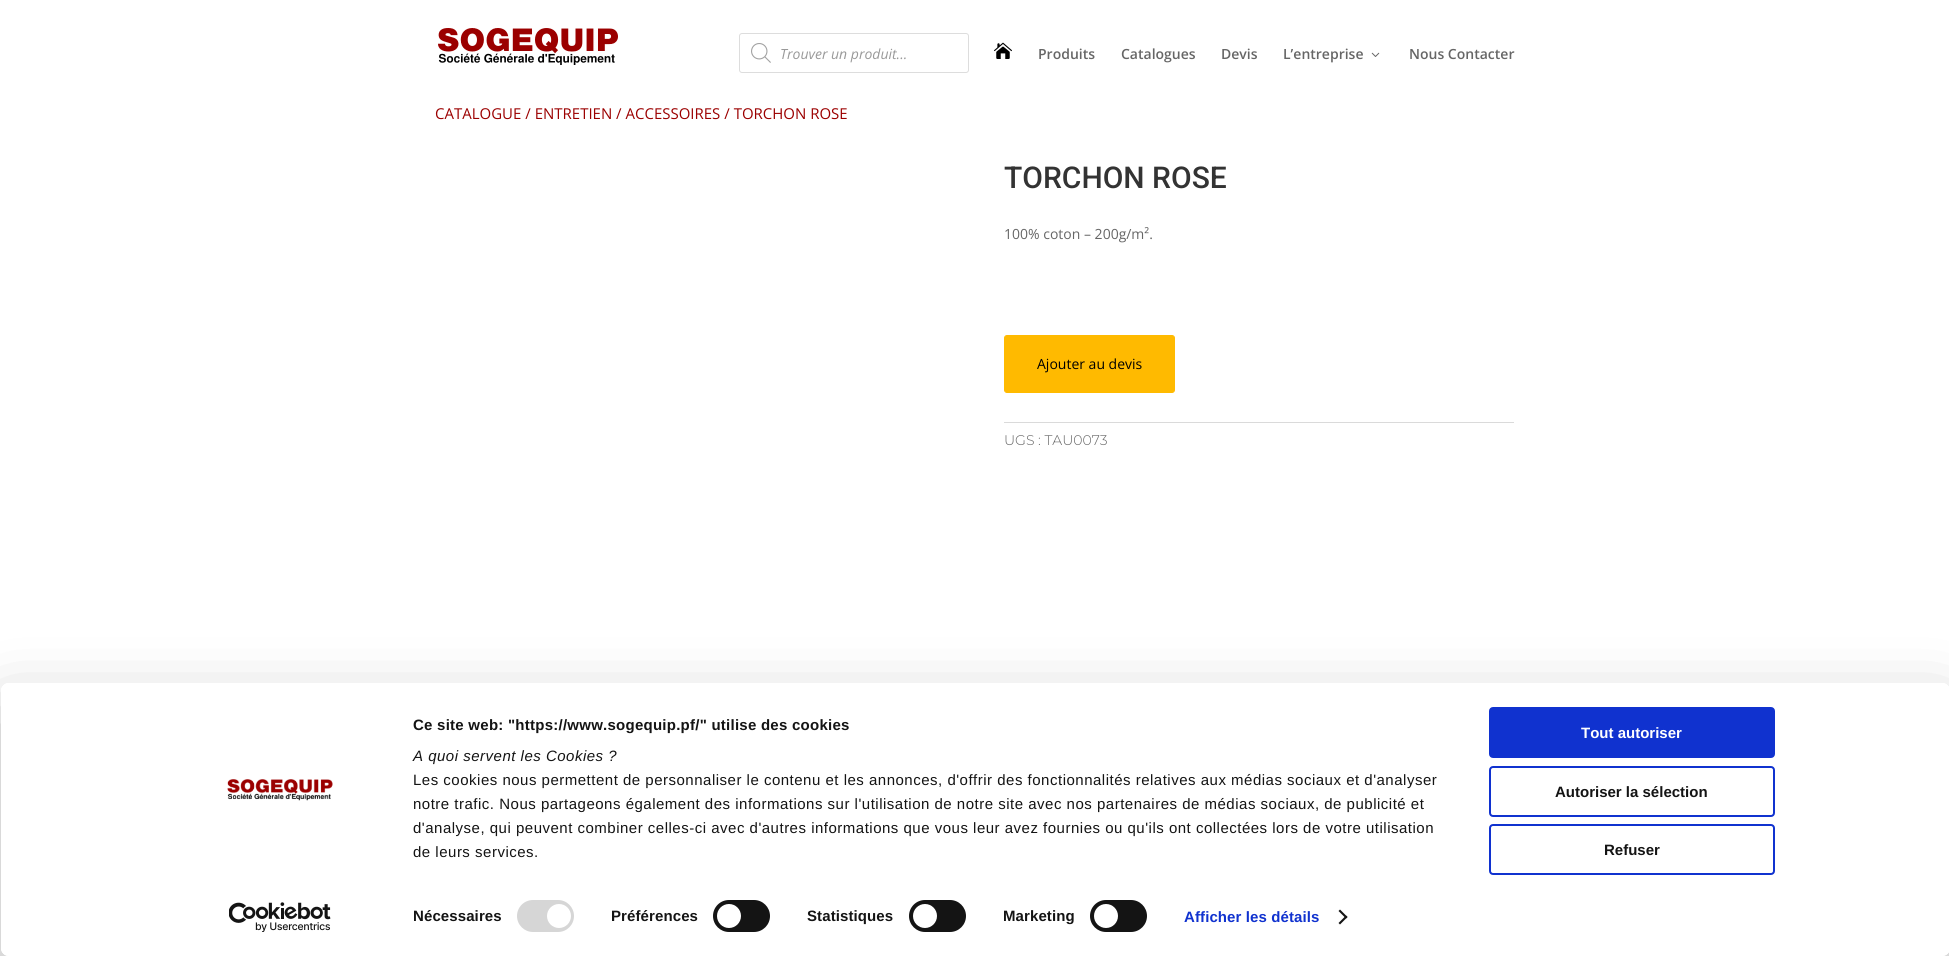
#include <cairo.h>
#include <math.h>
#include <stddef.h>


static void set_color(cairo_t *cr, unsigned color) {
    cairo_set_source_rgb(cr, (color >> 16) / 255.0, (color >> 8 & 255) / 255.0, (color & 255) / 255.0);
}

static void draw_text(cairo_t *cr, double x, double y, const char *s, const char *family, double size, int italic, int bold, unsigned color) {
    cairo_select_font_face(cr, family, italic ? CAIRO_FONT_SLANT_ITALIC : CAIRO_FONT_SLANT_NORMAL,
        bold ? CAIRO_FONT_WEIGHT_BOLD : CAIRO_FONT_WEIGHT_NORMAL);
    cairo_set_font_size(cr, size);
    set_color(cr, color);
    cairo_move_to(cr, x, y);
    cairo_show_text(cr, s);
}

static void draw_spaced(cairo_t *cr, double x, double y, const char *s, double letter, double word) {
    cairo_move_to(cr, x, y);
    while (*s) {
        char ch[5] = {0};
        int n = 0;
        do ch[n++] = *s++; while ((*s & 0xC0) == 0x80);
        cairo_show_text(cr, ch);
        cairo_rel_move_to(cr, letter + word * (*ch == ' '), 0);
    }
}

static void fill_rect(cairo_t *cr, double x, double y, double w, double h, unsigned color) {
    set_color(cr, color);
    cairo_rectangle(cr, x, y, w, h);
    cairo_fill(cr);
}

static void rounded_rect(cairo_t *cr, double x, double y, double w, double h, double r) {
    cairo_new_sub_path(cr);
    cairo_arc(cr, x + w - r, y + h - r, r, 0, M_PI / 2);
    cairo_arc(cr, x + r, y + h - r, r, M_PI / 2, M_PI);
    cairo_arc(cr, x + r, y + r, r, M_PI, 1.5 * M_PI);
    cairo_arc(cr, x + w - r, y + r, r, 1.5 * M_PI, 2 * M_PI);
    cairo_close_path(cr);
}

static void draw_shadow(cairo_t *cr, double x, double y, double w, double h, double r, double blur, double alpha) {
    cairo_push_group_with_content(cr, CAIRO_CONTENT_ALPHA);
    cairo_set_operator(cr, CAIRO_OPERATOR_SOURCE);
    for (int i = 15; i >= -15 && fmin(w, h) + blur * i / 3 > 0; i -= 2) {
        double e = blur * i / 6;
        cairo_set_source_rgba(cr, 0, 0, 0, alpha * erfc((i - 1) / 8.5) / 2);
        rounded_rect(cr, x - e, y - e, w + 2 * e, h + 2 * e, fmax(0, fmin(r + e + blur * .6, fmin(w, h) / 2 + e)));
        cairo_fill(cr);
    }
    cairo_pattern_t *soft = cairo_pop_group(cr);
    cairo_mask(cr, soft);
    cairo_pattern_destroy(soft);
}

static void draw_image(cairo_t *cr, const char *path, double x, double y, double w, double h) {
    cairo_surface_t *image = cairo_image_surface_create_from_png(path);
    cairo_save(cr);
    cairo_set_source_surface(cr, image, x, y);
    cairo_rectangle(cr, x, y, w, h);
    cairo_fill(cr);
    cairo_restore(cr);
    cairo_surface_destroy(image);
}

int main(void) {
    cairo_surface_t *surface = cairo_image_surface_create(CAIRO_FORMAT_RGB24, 1949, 956);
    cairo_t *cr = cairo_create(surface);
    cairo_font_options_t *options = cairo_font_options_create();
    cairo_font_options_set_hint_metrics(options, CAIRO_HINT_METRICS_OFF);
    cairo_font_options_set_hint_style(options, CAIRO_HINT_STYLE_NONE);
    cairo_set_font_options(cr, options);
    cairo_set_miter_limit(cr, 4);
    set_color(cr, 0xFFFFFF);
    cairo_paint(cr);
    draw_image(cr, "assets/img1.png", 438, 28, 180, 37);
    rounded_rect(cr, 739.5, 33.5, 229, 39, 2.5);
    set_color(cr, 0xDDDDDD);
    cairo_set_line_width(cr, 1);
    cairo_stroke(cr);
    draw_image(cr, "assets/img2.png", 751, 43, 20, 20);
    draw_text(cr, 780, 59, "Trouver un produit...", "Open Sans", 14, 1, 0, 0x999999);
    draw_image(cr, "assets/img3.png", 994, 42, 18, 17);
    draw_text(cr, 1038, 59, "Produits", "Open Sans SemiBold", 14, 0, 0, 0x666666);
    draw_text(cr, 1121, 59, "Catalogues", "Open Sans SemiBold", 14, 0, 0, 0x666666);
    draw_text(cr, 1221, 59, "Devis", "Open Sans SemiBold", 14, 0, 0, 0x666666);
    draw_text(cr, 1283, 59, "L’entreprise", "Open Sans SemiBold", 14, 0, 0, 0x666666);
    draw_image(cr, "assets/img4.png", 1371, 52, 9, 5);
    draw_text(cr, 1409, 59, "Nous Contacter", "Open Sans SemiBold", 14, 0, 0, 0x666666);
    draw_text(cr, 435, 119, "CATALOGUE / ENTRETIEN / ACCESSOIRES / TORCHON ROSE", "Open Sans", 15, 0, 0, 0x9B0000);
    draw_text(cr, 1004, 188, "TORCHON ROSE", "Roboto Medium", 30, 0, 0, 0x333333);
    draw_text(cr, 1004, 239, "100% coton – 200g/m².", "Open Sans", 14, 0, 0, 0x666666);
    set_color(cr, 0xFFBA00);
    rounded_rect(cr, 1004.5, 335.5, 170, 57, 2.5);
    cairo_fill_preserve(cr);
    cairo_stroke(cr);
    draw_text(cr, 1037, 369, "Ajouter au devis", "Open Sans", 14, 0, 0, 0x000000);
    fill_rect(cr, 1004, 422, 510, 1, 0xDADADA);
    draw_text(cr, 1004, 445, "UGS : TAU0073", "Montserrat Light", 14, 0, 0, 0x666666);
    cairo_save(cr);
    cairo_set_fill_rule(cr, CAIRO_FILL_RULE_EVEN_ODD);
    cairo_new_path(cr);
    cairo_move_to(cr, 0, 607);
    cairo_line_to(cr, 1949, 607);
    cairo_line_to(cr, 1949, 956);
    cairo_line_to(cr, 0, 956);
    cairo_close_path(cr);
    cairo_move_to(cr, 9, 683);
    cairo_line_to(cr, 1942, 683);
    cairo_curve_to(cr, 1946.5, 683, 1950, 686.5, 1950, 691);
    cairo_line_to(cr, 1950, 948);
    cairo_curve_to(cr, 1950, 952.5, 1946.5, 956, 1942, 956);
    cairo_line_to(cr, 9, 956);
    cairo_curve_to(cr, 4.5, 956, 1, 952.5, 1, 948);
    cairo_line_to(cr, 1, 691);
    cairo_curve_to(cr, 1, 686.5, 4.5, 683, 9, 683);
    cairo_close_path(cr);
    cairo_clip(cr);
    set_color(cr, 0x000000);
    draw_shadow(cr, 1, 713, 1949, 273, 8, 35, 0.3);
    cairo_restore(cr);
    set_color(cr, 0xFFFFFF);
    rounded_rect(cr, 1, 683, 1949, 273, 8);
    cairo_fill(cr);
    draw_image(cr, "assets/img5.png", 227, 779, 106, 22);
    draw_image(cr, "assets/img6.png", 229, 902, 102, 30);
    cairo_select_font_face(cr, "Liberation Sans", CAIRO_FONT_SLANT_NORMAL, CAIRO_FONT_WEIGHT_BOLD);
    cairo_set_font_size(cr, 15);
    set_color(cr, 0x141414);
    draw_spaced(cr, 413, 730, "Ce site web: \"https://www.sogequip.pf/\" utilise des cookies", 0.25, 0);
    cairo_select_font_face(cr, "Liberation Sans", CAIRO_FONT_SLANT_ITALIC, CAIRO_FONT_WEIGHT_NORMAL);
    draw_spaced(cr, 413, 761, "A quoi servent les Cookies ?", 0.5, 0);
    cairo_select_font_face(cr, "Liberation Sans", CAIRO_FONT_SLANT_NORMAL, CAIRO_FONT_WEIGHT_NORMAL);
    draw_spaced(cr, 413, 785, "Les cookies nous permettent de personnaliser le contenu et les annonces, d'offrir des fonctionnalités relatives aux médias sociaux et d'analyser", 0.5, 0);
    draw_spaced(cr, 413, 809, "notre trafic. Nous partageons également des informations sur l'utilisation de notre site avec nos partenaires de médias sociaux, de publicité et", 0.5, 0);
    draw_spaced(cr, 413, 833, "d'analyse, qui peuvent combiner celles-ci avec d'autres informations que vous leur avez fournies ou qu'ils ont collectées lors de votre utilisation", 0.5, 0);
    draw_spaced(cr, 413, 857, "de leurs services.", 0.5, 0);
    cairo_select_font_face(cr, "Liberation Sans", CAIRO_FONT_SLANT_NORMAL, CAIRO_FONT_WEIGHT_BOLD);
    draw_spaced(cr, 413, 921, "Nécessaires", 0.1, 0);
    set_color(cr, 0xD6D6D6);
    rounded_rect(cr, 517, 900, 57, 32, 16);
    cairo_fill(cr);
    set_color(cr, 0xFFFFFF);
    cairo_arc(cr, 559, 916, 12, 0, 2 * M_PI);
    cairo_fill(cr);
    set_color(cr, 0x141414);
    draw_spaced(cr, 611, 921, "Préférences", 0.1, 0);
    rounded_rect(cr, 713, 900, 57, 32, 16);
    cairo_fill(cr);
    set_color(cr, 0xFFFFFF);
    cairo_arc(cr, 729, 916, 12, 0, 2 * M_PI);
    cairo_fill(cr);
    set_color(cr, 0x141414);
    draw_spaced(cr, 807, 921, "Statistiques", 0.1, 0);
    rounded_rect(cr, 909, 900, 57, 32, 16);
    cairo_fill(cr);
    set_color(cr, 0xFFFFFF);
    cairo_arc(cr, 925, 916, 12, 0, 2 * M_PI);
    cairo_fill(cr);
    set_color(cr, 0x141414);
    draw_spaced(cr, 1003, 921, "Marketing", 0.1, 0);
    rounded_rect(cr, 1090, 900, 57, 32, 16);
    cairo_fill(cr);
    set_color(cr, 0xFFFFFF);
    cairo_arc(cr, 1106, 916, 12, 0, 2 * M_PI);
    cairo_fill(cr);
    set_color(cr, 0x1032CF);
    draw_spaced(cr, 1184, 922, "Afficher les détails", 0.1, 0);
    set_color(cr, 0x141414);
    cairo_new_path(cr);
    cairo_move_to(cr, 1340, 909.5);
    cairo_line_to(cr, 1347.5, 917);
    cairo_line_to(cr, 1346, 918.5);
    cairo_line_to(cr, 1338.5, 911);
    cairo_close_path(cr);
    cairo_fill(cr);
    cairo_new_path(cr);
    cairo_move_to(cr, 1346, 915.5);
    cairo_line_to(cr, 1347.5, 917);
    cairo_line_to(cr, 1340, 924.5);
    cairo_line_to(cr, 1338.5, 923);
    cairo_close_path(cr);
    cairo_fill(cr);
    set_color(cr, 0x1032CF);
    rounded_rect(cr, 1490, 708, 284, 49, 3);
    cairo_fill_preserve(cr);
    cairo_set_line_width(cr, 2);
    cairo_stroke(cr);
    draw_text(cr, 1581, 738, "Tout autoriser", "Liberation Sans", 15, 0, 1, 0xFFFFFF);
    rounded_rect(cr, 1490, 767, 284, 49, 3);
    set_color(cr, 0x1032CF);
    cairo_stroke(cr);
    draw_text(cr, 1555, 797, "Autoriser la sélection", "Liberation Sans", 15, 0, 1, 0x141414);
    rounded_rect(cr, 1490, 825, 284, 49, 3);
    set_color(cr, 0x1032CF);
    cairo_stroke(cr);
    draw_text(cr, 1604, 855, "Refuser", "Liberation Sans", 15, 0, 1, 0x141414);
    cairo_surface_write_to_png(surface, "output.png");
    cairo_font_options_destroy(options);
    cairo_destroy(cr);
    cairo_surface_destroy(surface);
    return 0;
}
